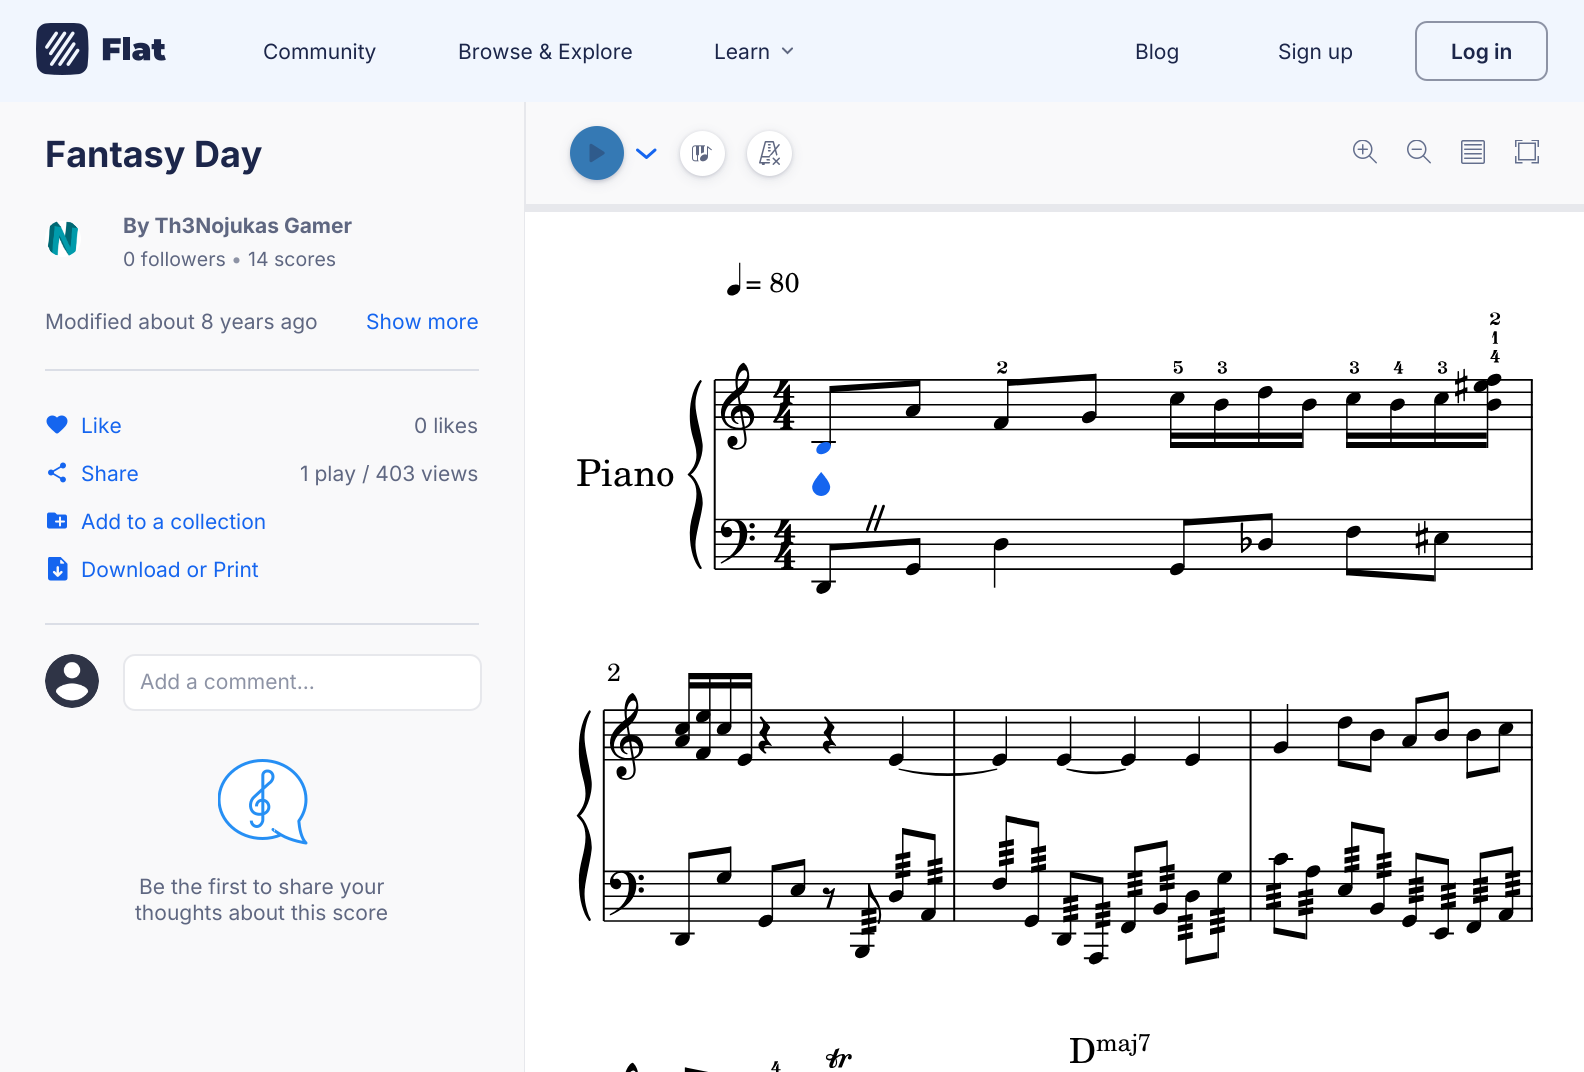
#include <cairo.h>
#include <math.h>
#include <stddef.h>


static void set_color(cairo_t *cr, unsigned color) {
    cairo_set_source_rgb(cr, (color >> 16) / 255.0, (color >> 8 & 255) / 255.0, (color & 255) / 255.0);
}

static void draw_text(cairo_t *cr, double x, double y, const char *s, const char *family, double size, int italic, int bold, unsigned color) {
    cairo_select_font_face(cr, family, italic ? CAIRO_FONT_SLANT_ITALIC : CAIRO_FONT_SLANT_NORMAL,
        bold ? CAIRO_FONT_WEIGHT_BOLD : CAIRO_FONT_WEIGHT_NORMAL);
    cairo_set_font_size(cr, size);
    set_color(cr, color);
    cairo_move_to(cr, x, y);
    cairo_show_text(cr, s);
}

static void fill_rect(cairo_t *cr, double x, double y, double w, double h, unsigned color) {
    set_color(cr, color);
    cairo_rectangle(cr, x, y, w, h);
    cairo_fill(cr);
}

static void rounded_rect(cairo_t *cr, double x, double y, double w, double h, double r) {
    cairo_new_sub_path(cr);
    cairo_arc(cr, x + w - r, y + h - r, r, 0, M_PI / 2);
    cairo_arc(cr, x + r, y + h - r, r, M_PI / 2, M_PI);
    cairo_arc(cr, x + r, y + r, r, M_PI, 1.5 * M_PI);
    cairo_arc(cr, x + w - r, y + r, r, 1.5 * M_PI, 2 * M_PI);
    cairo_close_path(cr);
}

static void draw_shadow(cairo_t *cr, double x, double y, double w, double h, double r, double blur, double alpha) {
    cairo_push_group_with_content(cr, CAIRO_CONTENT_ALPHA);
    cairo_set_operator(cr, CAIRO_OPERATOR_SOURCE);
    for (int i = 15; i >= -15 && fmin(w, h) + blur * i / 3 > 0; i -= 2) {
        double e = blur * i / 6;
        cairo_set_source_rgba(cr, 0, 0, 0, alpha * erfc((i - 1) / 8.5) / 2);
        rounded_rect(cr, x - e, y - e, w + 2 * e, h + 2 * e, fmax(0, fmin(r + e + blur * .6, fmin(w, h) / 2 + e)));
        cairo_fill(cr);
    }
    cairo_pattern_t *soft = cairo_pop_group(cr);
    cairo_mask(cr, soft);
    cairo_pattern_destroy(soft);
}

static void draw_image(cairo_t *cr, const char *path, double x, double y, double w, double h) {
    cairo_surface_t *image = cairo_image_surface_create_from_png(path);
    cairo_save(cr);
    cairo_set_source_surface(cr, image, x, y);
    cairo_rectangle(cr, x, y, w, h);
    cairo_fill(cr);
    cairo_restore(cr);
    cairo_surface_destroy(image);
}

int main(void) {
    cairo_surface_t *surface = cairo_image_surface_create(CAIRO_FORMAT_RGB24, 1584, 1072);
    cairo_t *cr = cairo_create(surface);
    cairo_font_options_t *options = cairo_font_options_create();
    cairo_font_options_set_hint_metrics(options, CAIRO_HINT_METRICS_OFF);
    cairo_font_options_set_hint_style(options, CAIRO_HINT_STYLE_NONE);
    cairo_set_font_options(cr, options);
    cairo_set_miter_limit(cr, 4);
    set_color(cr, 0xF1F6FE);
    cairo_paint(cr);
    draw_image(cr, "assets/img1.png", 36, 23, 130, 52);
    draw_text(cr, 263, 59, "Community", "Inter", 21, 0, 0, 0x1C264A);
    draw_text(cr, 458, 59, "Browse & Explore", "Inter", 21, 0, 0, 0x1C264A);
    draw_text(cr, 714, 59, "Learn", "Inter", 21, 0, 0, 0x1C264A);
    draw_image(cr, "assets/img2.png", 781, 47, 12, 8);
    draw_text(cr, 1135, 59, "Blog", "Inter", 21, 0, 0, 0x1C264A);
    draw_text(cr, 1278, 59, "Sign up", "Inter", 21, 0, 0, 0x1C264A);
    rounded_rect(cr, 1416, 22, 131, 58, 11);
    set_color(cr, 0x8D93A5);
    cairo_stroke(cr);
    draw_text(cr, 1451, 59, "Log in", "Inter SemiBold", 21, 0, 0, 0x1C264A);
    fill_rect(cr, 0, 102, 524, 970, 0xF9F9FA);
    fill_rect(cr, 524, 102, 2, 970, 0xE7E8EC);
    draw_text(cr, 45, 167, "Fantasy Day", "Inter", 36, 0, 1, 0x1C264A);
    set_color(cr, 0xFFFFFF);
    cairo_new_path(cr);
    cairo_arc(cr, 63, 239, 18, 0, 2 * M_PI);
    cairo_fill(cr);
    draw_image(cr, "assets/img3.png", 47, 221, 31, 35);
    draw_text(cr, 123, 233, "By Th3Nojukas Gamer", "Inter", 21, 0, 1, 0x5F6781);
    draw_text(cr, 123, 266, "0 followers", "Inter", 19.5, 0, 0, 0x5F6781);
    draw_text(cr, 231, 266, "•", "Inter", 19.5, 0, 0, 0x8D93A5);
    draw_text(cr, 248, 266, "14 scores", "Inter", 19.5, 0, 0, 0x5F6781);
    draw_text(cr, 45, 329, "Modified about 8 years ago", "Inter", 21, 0, 0, 0x5F6781);
    draw_text(cr, 366, 329, "Show more", "Inter", 21, 0, 0, 0x1565EF);
    fill_rect(cr, 45, 369, 434, 2, 0xDBDEE6);
    draw_image(cr, "assets/img4.png", 46, 415, 22, 19);
    draw_text(cr, 81, 433, "Like", "Inter", 21, 0, 0, 0x1565EF);
    draw_text(cr, 414, 433, "0 likes", "Inter", 21, 0, 0, 0x5F6781);
    draw_image(cr, "assets/img5.png", 48, 462, 18, 21);
    draw_text(cr, 81, 481, "Share", "Inter", 21, 0, 0, 0x1565EF);
    draw_text(cr, 300, 481, "1 play / 403 views", "Inter", 21, 0, 0, 0x5F6781);
    draw_image(cr, "assets/img6.png", 47, 512, 20, 17);
    draw_text(cr, 81, 529, "Add to a collection", "Inter", 21, 0, 0, 0x1565EF);
    draw_image(cr, "assets/img7.png", 48, 557, 20, 24);
    draw_text(cr, 81, 577, "Download or Print", "Inter", 21, 0, 0, 0x1565EF);
    fill_rect(cr, 45, 623, 434, 2, 0xDBDEE6);
    set_color(cr, 0xFFFFFF);
    cairo_new_path(cr);
    cairo_arc(cr, 72, 681, 27, 0, 2 * M_PI);
    cairo_fill(cr);
    draw_image(cr, "assets/img8.png", 45, 654, 54, 54);
    rounded_rect(cr, 124, 655, 357, 55, 11);
    cairo_fill_preserve(cr);
    set_color(cr, 0xE7E8EC);
    cairo_stroke(cr);
    draw_text(cr, 140, 689, "Add a comment...", "Inter", 21, 0, 0, 0x8D93A5);
    draw_image(cr, "assets/img9.png", 218, 759, 90, 86);
    draw_text(cr, 139, 894, "Be the first to share your", "Inter", 21, 0, 0, 0x5F6781);
    draw_text(cr, 135, 920, "thoughts about this score", "Inter", 21, 0, 0, 0x5F6781);
    fill_rect(cr, 526, 102, 1058, 102, 0xF9F9FA);
    set_color(cr, 0x28304F);
    draw_shadow(cr, 570, 128, 54, 54, 27, 2, 0.2);
    draw_shadow(cr, 570, 129, 54, 54, 27, 6, 0.1);
    set_color(cr, 0x3579B4);
    cairo_arc(cr, 597, 153, 27, 0, 2 * M_PI);
    cairo_fill(cr);
    draw_image(cr, "assets/img10.png", 589, 143, 16, 20);
    cairo_new_path(cr);
    cairo_move_to(cr, 637.5, 150);
    cairo_line_to(cr, 646.5, 157.5);
    cairo_line_to(cr, 655, 150);
    set_color(cr, 0x1565EF);
    cairo_set_line_width(cr, 3);
    cairo_set_line_cap(cr, CAIRO_LINE_CAP_ROUND);
    cairo_set_line_join(cr, CAIRO_LINE_JOIN_ROUND);
    cairo_stroke(cr);
    set_color(cr, 0x28304F);
    draw_shadow(cr, 680, 132, 45, 45, 22.5, 2, 0.2);
    draw_shadow(cr, 680, 134, 45, 45, 22.5, 6, 0.1);
    set_color(cr, 0xFFFFFF);
    cairo_arc(cr, 702.5, 153.5, 22.5, 0, 2 * M_PI);
    cairo_fill(cr);
    draw_image(cr, "assets/img11.png", 692, 145, 20, 17);
    set_color(cr, 0x28304F);
    draw_shadow(cr, 747, 132, 45, 45, 22.5, 2, 0.2);
    draw_shadow(cr, 747, 134, 45, 45, 22.5, 6, 0.1);
    set_color(cr, 0xFFFFFF);
    cairo_arc(cr, 769.5, 153.5, 22.5, 0, 2 * M_PI);
    cairo_fill(cr);
    draw_image(cr, "assets/img12.png", 759, 141, 21, 24);
    draw_image(cr, "assets/img13.png", 1353, 140, 24, 24);
    draw_image(cr, "assets/img14.png", 1407, 140, 24, 24);
    draw_image(cr, "assets/img15.png", 1461, 140, 24, 24);
    draw_image(cr, "assets/img16.png", 1515, 140, 24, 24);
    fill_rect(cr, 525, 204, 1059, 8, 0xE7E8EC);
    fill_rect(cr, 525, 212, 1059, 860, 0xFFFFFF);
    draw_image(cr, "assets/img17.png", 577, 262, 956, 332);
    draw_image(cr, "assets/img18.png", 576, 663, 957, 302);
    draw_image(cr, "assets/img19.png", 625, 1033, 525, 39);
    cairo_surface_write_to_png(surface, "output.png");
    cairo_font_options_destroy(options);
    cairo_destroy(cr);
    cairo_surface_destroy(surface);
    return 0;
}
